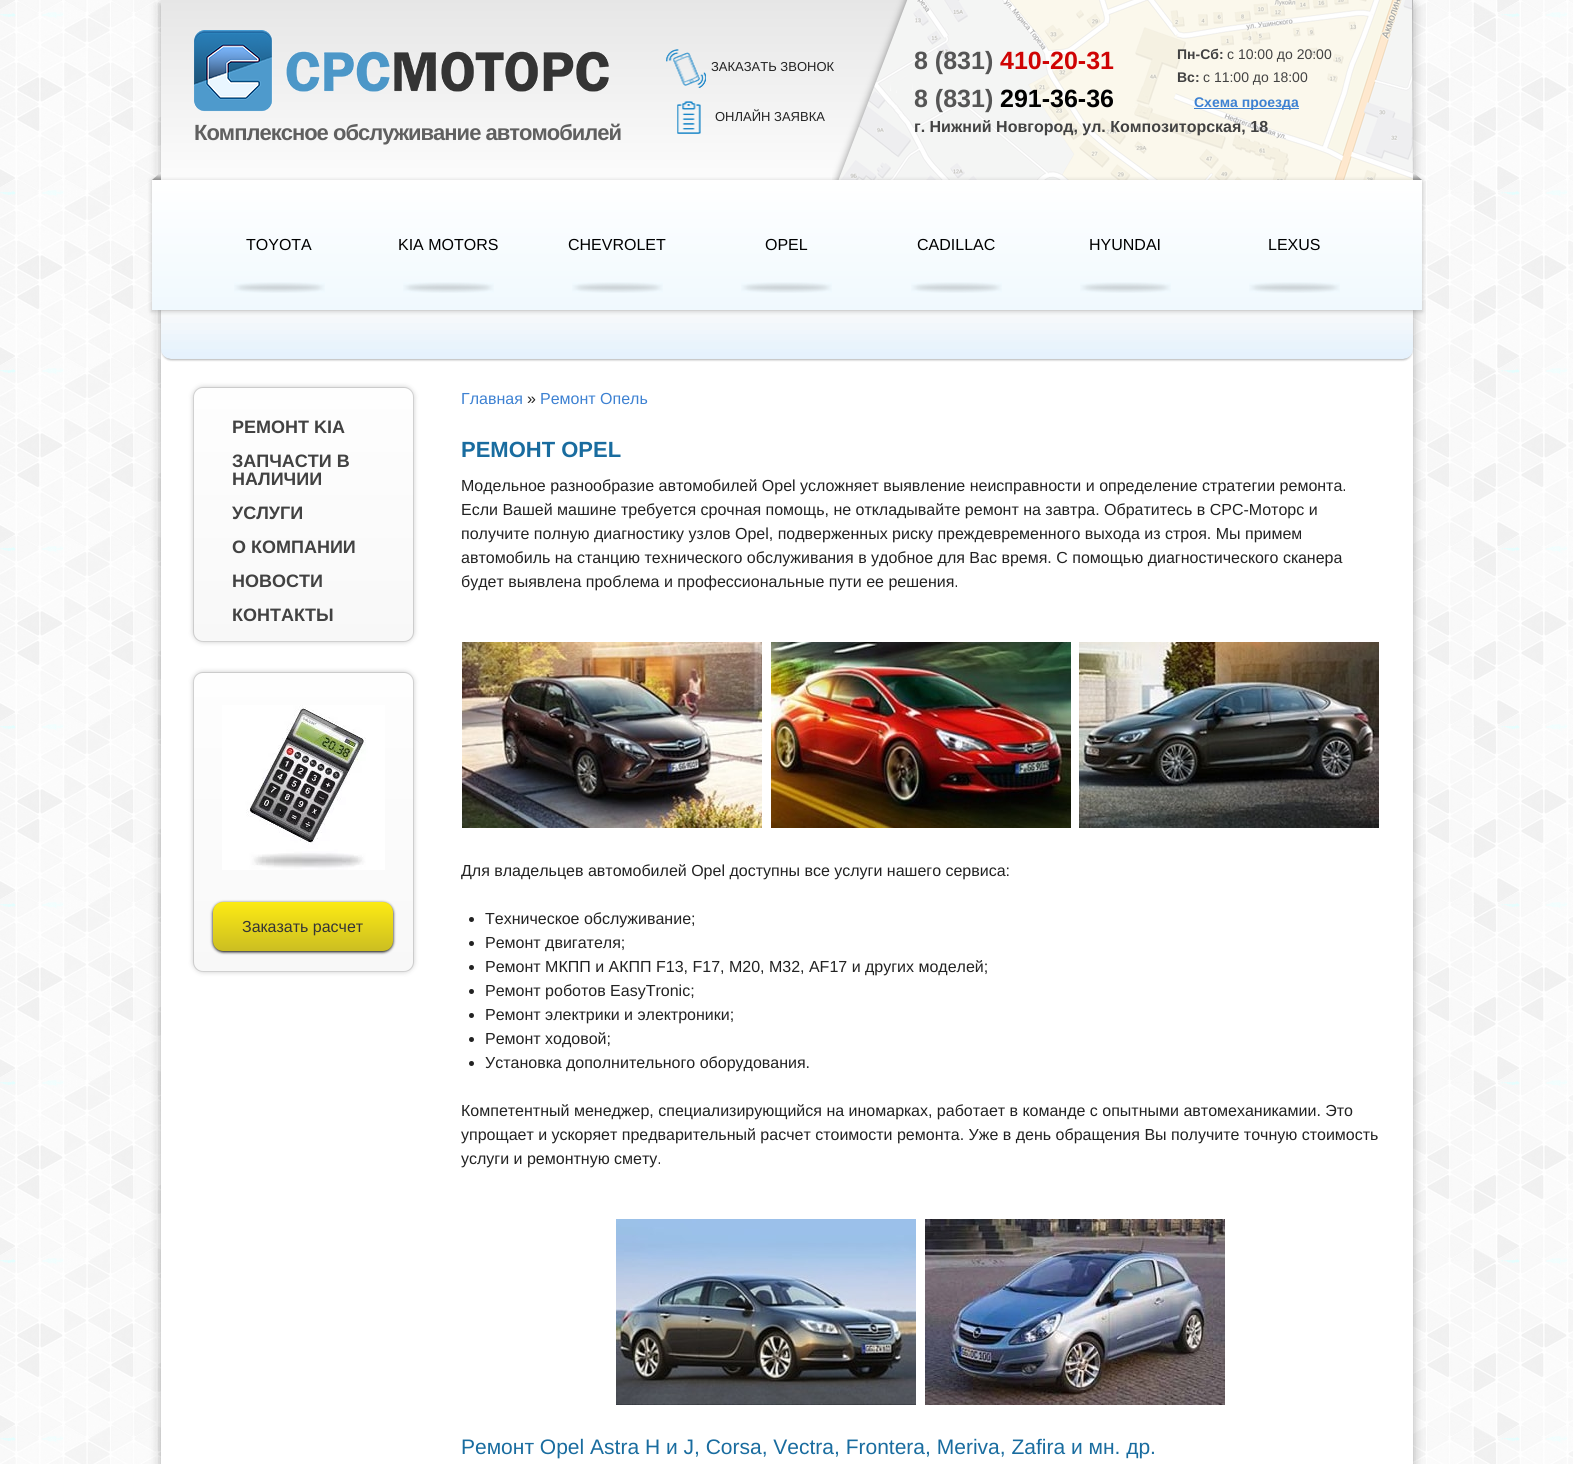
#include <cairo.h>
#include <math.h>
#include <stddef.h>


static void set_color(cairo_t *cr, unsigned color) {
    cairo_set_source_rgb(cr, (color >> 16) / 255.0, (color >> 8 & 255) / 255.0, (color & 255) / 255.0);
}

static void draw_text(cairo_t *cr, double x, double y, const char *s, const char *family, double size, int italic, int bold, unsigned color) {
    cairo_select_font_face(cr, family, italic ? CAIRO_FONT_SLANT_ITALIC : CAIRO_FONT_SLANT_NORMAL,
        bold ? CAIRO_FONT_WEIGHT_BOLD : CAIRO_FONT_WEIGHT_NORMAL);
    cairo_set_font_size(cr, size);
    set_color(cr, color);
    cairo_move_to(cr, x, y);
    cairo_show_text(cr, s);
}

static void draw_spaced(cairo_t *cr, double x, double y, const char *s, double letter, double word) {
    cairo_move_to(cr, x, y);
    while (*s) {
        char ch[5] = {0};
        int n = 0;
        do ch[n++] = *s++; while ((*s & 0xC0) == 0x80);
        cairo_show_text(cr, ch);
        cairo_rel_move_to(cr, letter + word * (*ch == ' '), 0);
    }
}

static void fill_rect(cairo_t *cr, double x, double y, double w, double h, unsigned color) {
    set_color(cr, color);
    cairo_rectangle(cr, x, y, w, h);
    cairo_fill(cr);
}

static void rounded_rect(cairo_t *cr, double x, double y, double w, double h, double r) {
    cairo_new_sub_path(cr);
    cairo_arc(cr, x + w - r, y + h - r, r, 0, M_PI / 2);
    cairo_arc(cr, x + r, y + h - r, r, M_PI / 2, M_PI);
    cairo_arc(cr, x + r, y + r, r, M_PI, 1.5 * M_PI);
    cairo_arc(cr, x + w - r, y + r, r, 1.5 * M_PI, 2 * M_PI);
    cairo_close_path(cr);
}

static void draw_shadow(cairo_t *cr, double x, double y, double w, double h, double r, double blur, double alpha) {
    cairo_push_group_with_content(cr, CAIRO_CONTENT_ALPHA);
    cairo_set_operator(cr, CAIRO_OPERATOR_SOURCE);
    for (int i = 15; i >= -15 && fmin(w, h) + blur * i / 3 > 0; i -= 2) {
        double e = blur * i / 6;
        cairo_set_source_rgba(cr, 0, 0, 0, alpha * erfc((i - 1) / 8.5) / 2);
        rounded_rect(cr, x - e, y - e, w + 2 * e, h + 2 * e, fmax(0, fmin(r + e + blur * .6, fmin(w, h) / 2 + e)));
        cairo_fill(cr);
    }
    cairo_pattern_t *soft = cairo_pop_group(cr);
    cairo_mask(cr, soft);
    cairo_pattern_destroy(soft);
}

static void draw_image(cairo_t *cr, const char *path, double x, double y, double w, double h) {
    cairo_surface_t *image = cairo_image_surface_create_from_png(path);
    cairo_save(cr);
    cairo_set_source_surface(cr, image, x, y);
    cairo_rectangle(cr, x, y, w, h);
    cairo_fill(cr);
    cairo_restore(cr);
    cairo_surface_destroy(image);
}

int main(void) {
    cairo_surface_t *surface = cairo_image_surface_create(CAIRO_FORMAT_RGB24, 1573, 1464);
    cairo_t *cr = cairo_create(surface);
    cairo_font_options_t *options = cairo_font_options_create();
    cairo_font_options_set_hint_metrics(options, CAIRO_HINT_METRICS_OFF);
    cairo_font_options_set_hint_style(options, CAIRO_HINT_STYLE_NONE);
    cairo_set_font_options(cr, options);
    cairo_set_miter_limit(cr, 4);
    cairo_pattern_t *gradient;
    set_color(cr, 0xFFFFFF);
    cairo_paint(cr);
    draw_image(cr, "assets/img1.png", 0, 0, 1573, 1464);
    set_color(cr, 0x000000);
    draw_shadow(cr, 161, 4, 1252, 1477, 0, 5.5, 0.3);
    fill_rect(cr, 161, 310, 1252, 1154, 0xFFFFFF);
    gradient = cairo_pattern_create_linear(787, -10, 787, 180);
    cairo_pattern_add_color_stop_rgba(gradient, 0, 0.898, 0.898, 0.898, 1);
    cairo_pattern_add_color_stop_rgba(gradient, 1, 0.988, 0.988, 0.988, 1);
    cairo_set_source(cr, gradient);
    cairo_pattern_destroy(gradient);
    cairo_rectangle(cr, 161, 0, 1252, 180);
    cairo_fill(cr);
    draw_image(cr, "assets/img2.png", 832, 0, 581, 180);
    draw_image(cr, "assets/img3.png", 666, 49, 40, 39);
    draw_text(cr, 711, 71, "ЗАКАЗАТЬ ЗВОНОК", "Liberation Sans", 13, 0, 0, 0x222222);
    draw_text(cr, 914, 69, "8 (831)", "Liberation Sans", 25, 0, 1, 0x555555);
    draw_text(cr, 1000, 69, "410-20-31", "Liberation Sans", 25, 0, 1, 0xCF0303);
    draw_text(cr, 914, 107, "8 (831)", "Liberation Sans", 25, 0, 1, 0x555555);
    draw_text(cr, 1000, 107, "291-36-36", "Liberation Sans", 25, 0, 1, 0x000000);
    draw_text(cr, 1177, 59, "Пн-Сб:", "Liberation Sans", 14, 0, 1, 0x424242);
    draw_text(cr, 1227, 59, "c 10:00 до 20:00", "Liberation Sans", 14, 0, 0, 0x424242);
    draw_text(cr, 1177, 82, "Вс:", "Liberation Sans", 14, 0, 1, 0x424242);
    draw_text(cr, 1203, 82, "c 11:00 до 18:00", "Liberation Sans", 14, 0, 0, 0x424242);
    fill_rect(cr, 1194, 108, 105, 1, 0x3D81D2);
    draw_text(cr, 1194, 107, "Схема проезда", "Liberation Sans", 14, 0, 1, 0x3D81D2);
    draw_text(cr, 914, 132, "г. Нижний Новгород, ул. Композиторская, 18", "Liberation Sans", 16, 0, 1, 0x424242);
    draw_image(cr, "assets/img4.png", 677, 101, 24, 33);
    draw_text(cr, 715, 121, "ОНЛАЙН ЗАЯВКА", "Liberation Sans", 13, 0, 0, 0x222222);
    draw_image(cr, "assets/img5.png", 194, 30, 415, 82);
    cairo_select_font_face(cr, "Liberation Sans", CAIRO_FONT_SLANT_NORMAL, CAIRO_FONT_WEIGHT_BOLD);
    cairo_set_font_size(cr, 22);
    set_color(cr, 0x606060);
    draw_spaced(cr, 194, 140, "Комплексное обслуживание автомобилей", -1, 0);
    set_color(cr, 0x000000);
    draw_shadow(cr, 162, 313, 1250, 47, 9, 1, 0.3);
    draw_image(cr, "assets/img9.png", 161, 310, 1252, 49);
    set_color(cr, 0x373737);
    draw_shadow(cr, 151, 180, 1272, 132, 0, 2, 0.2);
    gradient = cairo_pattern_create_linear(787, 180, 787, 310);
    cairo_pattern_add_color_stop_rgba(gradient, 0, 1, 1, 1, 1);
    cairo_pattern_add_color_stop_rgba(gradient, 1, 0.941, 0.976, 0.996, 1);
    cairo_set_source(cr, gradient);
    cairo_pattern_destroy(gradient);
    cairo_rectangle(cr, 152, 180, 1270, 130);
    cairo_fill(cr);
    draw_image(cr, "assets/img6.png", 152, 172, 9, 8);
    draw_image(cr, "assets/img7.png", 1413, 172, 9, 8);
    draw_image(cr, "assets/img8.png", 234, 282, 91, 11);
    draw_text(cr, 246, 250, "TOYOTA", "Liberation Sans", 16, 0, 0, 0x000000);
    draw_image(cr, "assets/img8.png", 403, 282, 91, 11);
    draw_text(cr, 398, 250, "KIA MOTORS", "Liberation Sans", 16, 0, 0, 0x000000);
    draw_image(cr, "assets/img8.png", 572, 282, 91, 11);
    draw_text(cr, 568, 250, "CHEVROLET", "Liberation Sans", 16, 0, 0, 0x000000);
    draw_image(cr, "assets/img8.png", 741, 282, 91, 11);
    draw_text(cr, 765, 250, "OPEL", "Liberation Sans", 16, 0, 0, 0x000000);
    draw_image(cr, "assets/img8.png", 911, 282, 91, 11);
    draw_text(cr, 917, 250, "CADILLAC", "Liberation Sans", 16, 0, 0, 0x000000);
    draw_image(cr, "assets/img8.png", 1080, 282, 91, 11);
    draw_text(cr, 1089, 250, "HYUNDAI", "Liberation Sans", 16, 0, 0, 0x000000);
    draw_image(cr, "assets/img8.png", 1249, 282, 91, 11);
    draw_text(cr, 1268, 250, "LEXUS", "Liberation Sans", 16, 0, 0, 0x000000);
    set_color(cr, 0x000002);
    draw_shadow(cr, 193, 387, 221, 255, 10, 2.5, 0.2);
    cairo_save(cr);
    rounded_rect(cr, 193, 387, 221, 255, 10);
    cairo_clip(cr);
    gradient = cairo_pattern_create_linear(304, 135, 304, 388);
    cairo_pattern_add_color_stop_rgba(gradient, 0, 0.996, 0.996, 0.996, 1);
    cairo_pattern_add_color_stop_rgba(gradient, 1, 0.973, 0.973, 0.973, 1);
    cairo_set_source(cr, gradient);
    cairo_pattern_destroy(gradient);
    cairo_rectangle(cr, 193, 387, 221, 1);
    cairo_fill(cr);
    gradient = cairo_pattern_create_linear(304, 388, 304, 641);
    cairo_pattern_add_color_stop_rgba(gradient, 0, 0.996, 0.996, 0.996, 1);
    cairo_pattern_add_color_stop_rgba(gradient, 1, 0.973, 0.973, 0.973, 1);
    cairo_set_source(cr, gradient);
    cairo_pattern_destroy(gradient);
    cairo_rectangle(cr, 193, 388, 221, 253);
    cairo_fill(cr);
    gradient = cairo_pattern_create_linear(304, 641, 304, 894);
    cairo_pattern_add_color_stop_rgba(gradient, 0, 0.996, 0.996, 0.996, 1);
    cairo_pattern_add_color_stop_rgba(gradient, 1, 0.973, 0.973, 0.973, 1);
    cairo_set_source(cr, gradient);
    cairo_pattern_destroy(gradient);
    cairo_rectangle(cr, 193, 641, 221, 1);
    cairo_fill(cr);
    cairo_restore(cr);
    rounded_rect(cr, 193.5, 387.5, 220, 254, 9.5);
    cairo_set_source_rgba(cr, 0.392, 0.392, 0.392, 0.3);
    cairo_set_line_width(cr, 1);
    cairo_stroke(cr);
    draw_text(cr, 232, 433, "РЕМОНТ KIA", "Liberation Sans", 18, 0, 1, 0x424242);
    draw_text(cr, 232, 467, "ЗАПЧАСТИ В", "Liberation Sans", 18, 0, 1, 0x424242);
    draw_text(cr, 232, 485, "НАЛИЧИИ", "Liberation Sans", 18, 0, 1, 0x424242);
    draw_text(cr, 232, 519, "УСЛУГИ", "Liberation Sans", 18, 0, 1, 0x424242);
    draw_text(cr, 232, 553, "О КОМПАНИИ", "Liberation Sans", 18, 0, 1, 0x424242);
    draw_text(cr, 232, 587, "НОВОСТИ", "Liberation Sans", 18, 0, 1, 0x424242);
    draw_text(cr, 232, 621, "КОНТАКТЫ", "Liberation Sans", 18, 0, 1, 0x424242);
    set_color(cr, 0x000002);
    draw_shadow(cr, 193, 672, 221, 300, 10, 2.5, 0.2);
    cairo_save(cr);
    rounded_rect(cr, 193, 672, 221, 300, 10);
    cairo_clip(cr);
    gradient = cairo_pattern_create_linear(304, 375, 304, 673);
    cairo_pattern_add_color_stop_rgba(gradient, 0, 0.996, 0.996, 0.996, 1);
    cairo_pattern_add_color_stop_rgba(gradient, 1, 0.973, 0.973, 0.973, 1);
    cairo_set_source(cr, gradient);
    cairo_pattern_destroy(gradient);
    cairo_rectangle(cr, 193, 672, 221, 1);
    cairo_fill(cr);
    gradient = cairo_pattern_create_linear(304, 673, 304, 971);
    cairo_pattern_add_color_stop_rgba(gradient, 0, 0.996, 0.996, 0.996, 1);
    cairo_pattern_add_color_stop_rgba(gradient, 1, 0.973, 0.973, 0.973, 1);
    cairo_set_source(cr, gradient);
    cairo_pattern_destroy(gradient);
    cairo_rectangle(cr, 193, 673, 221, 298);
    cairo_fill(cr);
    gradient = cairo_pattern_create_linear(304, 971, 304, 1269);
    cairo_pattern_add_color_stop_rgba(gradient, 0, 0.996, 0.996, 0.996, 1);
    cairo_pattern_add_color_stop_rgba(gradient, 1, 0.973, 0.973, 0.973, 1);
    cairo_set_source(cr, gradient);
    cairo_pattern_destroy(gradient);
    cairo_rectangle(cr, 193, 971, 221, 1);
    cairo_fill(cr);
    cairo_restore(cr);
    rounded_rect(cr, 193.5, 672.5, 220, 299, 9.5);
    cairo_set_source_rgba(cr, 0.392, 0.392, 0.392, 0.3);
    cairo_stroke(cr);
    draw_image(cr, "assets/img10.png", 222, 705, 163, 165);
    set_color(cr, 0x000002);
    draw_shadow(cr, 213, 903, 180, 49, 10, 1.5, 1);
    gradient = cairo_pattern_create_linear(303, 902, 303, 951);
    cairo_pattern_add_color_stop_rgba(gradient, 0, 0.988, 0.918, 0.075, 1);
    cairo_pattern_add_color_stop_rgba(gradient, 1, 0.8, 0.745, 0.133, 1);
    cairo_set_source(cr, gradient);
    cairo_pattern_destroy(gradient);
    rounded_rect(cr, 213, 902, 180, 49, 10);
    cairo_fill(cr);
    draw_text(cr, 242, 932, "Заказать расчет", "Liberation Sans", 16, 0, 0, 0x353535);
    draw_text(cr, 461, 404, "Главная", "Liberation Sans", 16, 0, 0, 0x3D81D2);
    draw_text(cr, 527, 404, "»", "Liberation Sans", 16, 0, 0, 0x222222);
    draw_text(cr, 540, 404, "Ремонт Опель", "Liberation Sans", 16, 0, 0, 0x3D81D2);
    draw_text(cr, 461, 457, "РЕМОНТ OPEL", "Liberation Sans", 22, 0, 1, 0x196C9F);
    draw_text(cr, 461, 491, "Модельное разнообразие автомобилей Opel усложняет выявление неисправности и определение стратегии ремонта.", "Liberation Sans", 16, 0, 0, 0x222222);
    draw_text(cr, 461, 515, "Если Вашей машине требуется срочная помощь, не откладывайте ремонт на завтра. Обратитесь в СРС-Моторс и", "Liberation Sans", 16, 0, 0, 0x222222);
    draw_text(cr, 461, 539, "получите полную диагностику узлов Opel, подверженных риску преждевременного выхода из строя. Мы примем", "Liberation Sans", 16, 0, 0, 0x222222);
    draw_text(cr, 461, 563, "автомобиль на станцию технического обслуживания в удобное для Вас время. С помощью диагностического сканера", "Liberation Sans", 16, 0, 0, 0x222222);
    draw_text(cr, 461, 587, "будет выявлена проблема и профессиональные пути ее решения.", "Liberation Sans", 16, 0, 0, 0x222222);
    draw_image(cr, "assets/img11.png", 462, 642, 300, 186);
    draw_image(cr, "assets/img12.png", 771, 642, 300, 186);
    draw_image(cr, "assets/img13.png", 1079, 642, 300, 186);
    draw_text(cr, 461, 876, "Для владельцев автомобилей Opel доступны все услуги нашего сервиса:", "Liberation Sans", 16, 0, 0, 0x222222);
    cairo_new_path(cr);
    cairo_arc(cr, 471.5, 919.5, 2.5, 0, 2 * M_PI);
    cairo_fill(cr);
    draw_text(cr, 485, 924, "Техническое обслуживание;", "Liberation Sans", 16, 0, 0, 0x222222);
    cairo_new_path(cr);
    cairo_arc(cr, 471.5, 943.5, 2.5, 0, 2 * M_PI);
    cairo_fill(cr);
    draw_text(cr, 485, 948, "Ремонт двигателя;", "Liberation Sans", 16, 0, 0, 0x222222);
    cairo_new_path(cr);
    cairo_arc(cr, 471.5, 967.5, 2.5, 0, 2 * M_PI);
    cairo_fill(cr);
    draw_text(cr, 485, 972, "Ремонт МКПП и АКПП F13, F17, M20, M32, AF17 и других моделей;", "Liberation Sans", 16, 0, 0, 0x222222);
    cairo_new_path(cr);
    cairo_arc(cr, 471.5, 991.5, 2.5, 0, 2 * M_PI);
    cairo_fill(cr);
    draw_text(cr, 485, 996, "Ремонт роботов EasyTronic;", "Liberation Sans", 16, 0, 0, 0x222222);
    cairo_new_path(cr);
    cairo_arc(cr, 471.5, 1015.5, 2.5, 0, 2 * M_PI);
    cairo_fill(cr);
    draw_text(cr, 485, 1020, "Ремонт электрики и электроники;", "Liberation Sans", 16, 0, 0, 0x222222);
    cairo_new_path(cr);
    cairo_arc(cr, 471.5, 1039.5, 2.5, 0, 2 * M_PI);
    cairo_fill(cr);
    draw_text(cr, 485, 1044, "Ремонт ходовой;", "Liberation Sans", 16, 0, 0, 0x222222);
    cairo_new_path(cr);
    cairo_arc(cr, 471.5, 1063.5, 2.5, 0, 2 * M_PI);
    cairo_fill(cr);
    draw_text(cr, 485, 1068, "Установка дополнительного оборудования.", "Liberation Sans", 16, 0, 0, 0x222222);
    draw_text(cr, 461, 1116, "Компетентный менеджер, специализирующийся на иномарках, работает в команде с опытными автомеханикамии. Это", "Liberation Sans", 16, 0, 0, 0x222222);
    draw_text(cr, 461, 1140, "упрощает и ускоряет предварительный расчет стоимости ремонта. Уже в день обращения Вы получите точную стоимость", "Liberation Sans", 16, 0, 0, 0x222222);
    draw_text(cr, 461, 1164, "услуги и ремонтную смету.", "Liberation Sans", 16, 0, 0, 0x222222);
    draw_image(cr, "assets/img14.png", 616, 1219, 300, 186);
    draw_image(cr, "assets/img15.png", 925, 1219, 300, 186);
    draw_text(cr, 461, 1454, "Ремонт Opel Astra H и J, Corsa, Vectra, Frontera, Meriva, Zafira и мн. др.", "Liberation Sans", 21, 0, 0, 0x196C9F);
    cairo_surface_write_to_png(surface, "output.png");
    cairo_font_options_destroy(options);
    cairo_destroy(cr);
    cairo_surface_destroy(surface);
    return 0;
}
